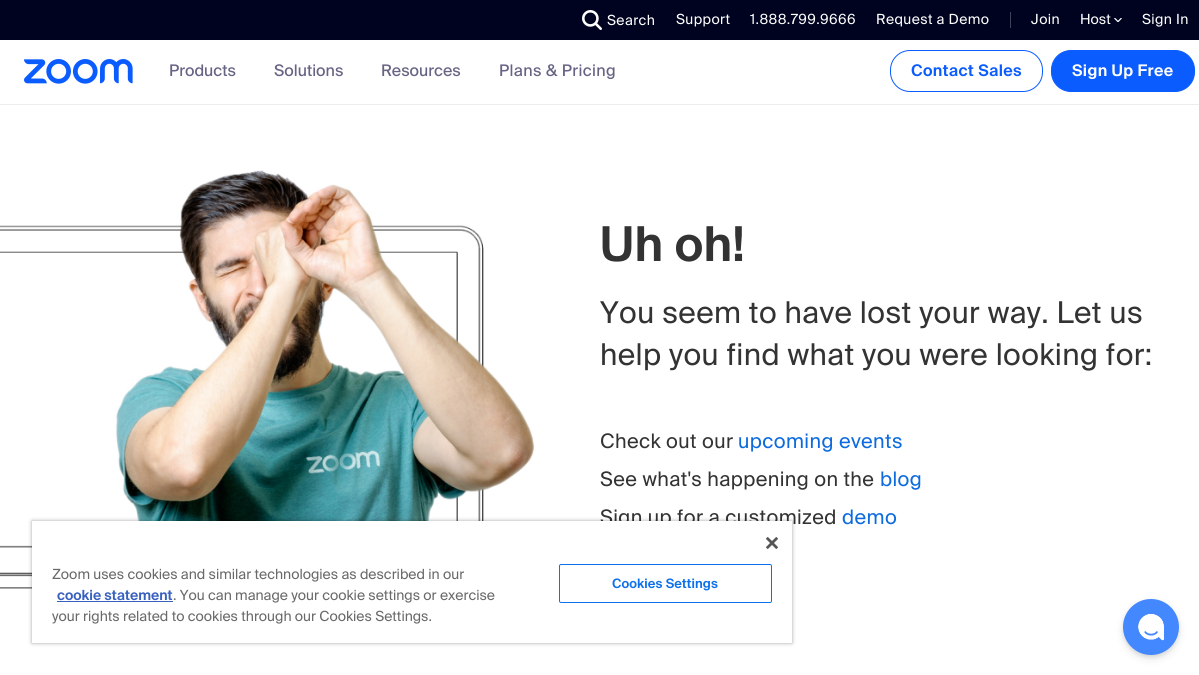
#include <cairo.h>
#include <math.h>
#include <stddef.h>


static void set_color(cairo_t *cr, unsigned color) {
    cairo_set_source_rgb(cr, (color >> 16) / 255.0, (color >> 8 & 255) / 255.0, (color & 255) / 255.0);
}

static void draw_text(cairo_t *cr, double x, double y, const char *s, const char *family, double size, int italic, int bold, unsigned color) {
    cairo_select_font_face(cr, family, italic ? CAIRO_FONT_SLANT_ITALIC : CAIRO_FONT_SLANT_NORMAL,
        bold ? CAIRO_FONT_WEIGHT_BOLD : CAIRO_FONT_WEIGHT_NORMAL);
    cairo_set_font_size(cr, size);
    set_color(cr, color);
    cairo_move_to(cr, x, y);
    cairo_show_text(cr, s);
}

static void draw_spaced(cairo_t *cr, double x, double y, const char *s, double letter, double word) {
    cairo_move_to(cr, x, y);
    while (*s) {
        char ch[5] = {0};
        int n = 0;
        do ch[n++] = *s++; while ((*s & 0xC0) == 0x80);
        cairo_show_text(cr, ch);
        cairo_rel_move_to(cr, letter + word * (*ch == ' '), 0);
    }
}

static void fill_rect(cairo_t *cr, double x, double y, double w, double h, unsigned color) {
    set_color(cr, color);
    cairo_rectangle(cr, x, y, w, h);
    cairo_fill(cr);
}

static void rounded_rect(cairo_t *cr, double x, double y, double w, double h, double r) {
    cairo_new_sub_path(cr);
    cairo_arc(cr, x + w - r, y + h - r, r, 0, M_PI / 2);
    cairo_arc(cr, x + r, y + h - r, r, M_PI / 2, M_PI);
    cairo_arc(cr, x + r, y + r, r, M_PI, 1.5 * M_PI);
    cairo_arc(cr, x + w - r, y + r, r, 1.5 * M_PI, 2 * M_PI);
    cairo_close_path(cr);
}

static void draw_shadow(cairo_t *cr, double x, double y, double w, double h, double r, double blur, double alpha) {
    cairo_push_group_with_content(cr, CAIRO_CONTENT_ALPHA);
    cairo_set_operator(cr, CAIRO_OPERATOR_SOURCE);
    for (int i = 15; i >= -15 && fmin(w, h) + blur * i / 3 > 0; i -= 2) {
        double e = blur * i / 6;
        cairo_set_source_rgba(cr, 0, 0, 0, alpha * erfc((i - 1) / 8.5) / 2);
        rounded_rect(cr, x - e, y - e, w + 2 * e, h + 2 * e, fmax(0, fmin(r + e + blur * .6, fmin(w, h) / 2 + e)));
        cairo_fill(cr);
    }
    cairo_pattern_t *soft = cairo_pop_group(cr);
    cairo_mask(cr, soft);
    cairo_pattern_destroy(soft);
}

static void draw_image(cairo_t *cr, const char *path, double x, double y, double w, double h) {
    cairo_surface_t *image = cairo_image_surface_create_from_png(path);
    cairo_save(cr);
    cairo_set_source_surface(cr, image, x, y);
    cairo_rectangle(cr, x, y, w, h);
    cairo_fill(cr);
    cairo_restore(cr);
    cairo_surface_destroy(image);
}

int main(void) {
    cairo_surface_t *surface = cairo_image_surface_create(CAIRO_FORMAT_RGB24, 1199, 675);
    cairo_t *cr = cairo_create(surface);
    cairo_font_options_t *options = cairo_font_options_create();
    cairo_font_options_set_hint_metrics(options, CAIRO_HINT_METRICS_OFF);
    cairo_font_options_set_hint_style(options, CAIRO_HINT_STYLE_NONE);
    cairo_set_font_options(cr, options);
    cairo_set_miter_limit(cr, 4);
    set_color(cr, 0xFFFFFF);
    cairo_paint(cr);
    cairo_save(cr);
    cairo_rectangle(cr, 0, 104, 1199, 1);
    cairo_clip(cr);
    set_color(cr, 0x000000);
    draw_shadow(cr, 0, 0, 1199, 104, 0, 1, 0.2);
    cairo_restore(cr);
    fill_rect(cr, 0, 0, 1199, 40, 0x00031F);
    draw_image(cr, "assets/img1.png", 582, 10, 20, 20);
    cairo_select_font_face(cr, "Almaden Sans", CAIRO_FONT_SLANT_NORMAL, CAIRO_FONT_WEIGHT_NORMAL);
    cairo_set_font_size(cr, 14);
    set_color(cr, 0xFFFFFF);
    draw_spaced(cr, 607, 25, "Search", 0.4, 0);
    draw_spaced(cr, 676, 24, "Support", 0.4, 0);
    draw_spaced(cr, 750, 24, "1.888.799.9666", 0.4, 0);
    draw_spaced(cr, 876, 24, "Request a Demo", 0.4, 0);
    fill_rect(cr, 1010, 12, 1, 16, 0x404257);
    set_color(cr, 0xFFFFFF);
    draw_spaced(cr, 1031, 24, "Join", 0.4, 0);
    draw_text(cr, 1080, 24, "Host", "Almaden Sans", 14, 0, 0, 0xFFFFFF);
    draw_image(cr, "assets/img2.png", 1114, 18, 8, 4);
    draw_spaced(cr, 1142, 24, "Sign In", 0.4, 0);
    draw_image(cr, "assets/img3.png", 24, 59, 109, 25);
    draw_text(cr, 169, 76, "Products", "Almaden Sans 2", 16, 0, 0, 0x666484);
    draw_text(cr, 274, 76, "Solutions", "Almaden Sans 2", 16, 0, 0, 0x666484);
    draw_text(cr, 381, 76, "Resources", "Almaden Sans 2", 16, 0, 0, 0x666484);
    draw_spaced(cr, 499, 76, "Plans & Pricing", 0.4, 0);
    rounded_rect(cr, 890.5, 50.5, 152, 41, 19.5);
    set_color(cr, 0x0B5CFF);
    cairo_set_line_width(cr, 1);
    cairo_stroke(cr);
    cairo_select_font_face(cr, "Almaden Sans SemiBold", CAIRO_FONT_SLANT_NORMAL, CAIRO_FONT_WEIGHT_NORMAL);
    draw_spaced(cr, 911, 76, "Contact Sales", 0.4, 0);
    rounded_rect(cr, 1051.5, 50.5, 143, 41, 19.5);
    cairo_fill_preserve(cr);
    cairo_stroke(cr);
    set_color(cr, 0xFFFFFF);
    draw_spaced(cr, 1072, 76, "Sign Up Free", 0.4, 0);
    draw_image(cr, "assets/img4.png", 0, 170, 541, 419);
    cairo_set_font_size(cr, 48);
    set_color(cr, 0x333333);
    draw_spaced(cr, 600, 261, "Uh oh!", 0.4, 0);
    cairo_select_font_face(cr, "Almaden Sans", CAIRO_FONT_SLANT_NORMAL, CAIRO_FONT_WEIGHT_NORMAL);
    cairo_set_font_size(cr, 30);
    draw_spaced(cr, 600, 323, "You seem to have lost your way. Let us", 0.4, 0);
    draw_spaced(cr, 600, 365, "help you find what you were looking for:", 0.4, 0);
    cairo_set_font_size(cr, 20);
    draw_spaced(cr, 600, 448, "Check out our", 0.4, 0);
    set_color(cr, 0x0D6BDE);
    draw_spaced(cr, 738, 448, "upcoming events", 0.4, 0);
    set_color(cr, 0x333333);
    draw_spaced(cr, 600, 486, "See what's happening on the", 0.4, 0);
    set_color(cr, 0x0D6BDE);
    draw_spaced(cr, 880, 486, "blog", 0.4, 0);
    set_color(cr, 0x333333);
    draw_spaced(cr, 600, 524, "Sign up for a customized", 0.4, 0);
    set_color(cr, 0x0D6BDE);
    draw_spaced(cr, 842, 524, "demo", 0.4, 0);
    set_color(cr, 0x000000);
    draw_shadow(cr, 32, 521, 760, 122, 0, 2, 0.35);
    fill_rect(cr, 32, 521, 760, 122, 0xFFFFFF);
    draw_image(cr, "assets/img5.png", 766, 537, 12, 12);
    draw_text(cr, 52, 579, "Zoom uses cookies and similar technologies as described in our", "Almaden Sans", 14, 0, 0, 0x696969);
    draw_text(cr, 57, 600, "cookie statement", "Almaden Sans SemiBold", 14, 0, 0, 0x3860BE);
    fill_rect(cr, 57, 601, 116, 1, 0x3860BE);
    draw_text(cr, 173, 600, ". You can manage your cookie settings or exercise", "Almaden Sans", 14, 0, 0, 0x696969);
    draw_text(cr, 52, 621, "your rights related to cookies through our Cookies Settings.", "Almaden Sans", 14, 0, 0, 0x696969);
    rounded_rect(cr, 559.5, 564.5, 212, 38, 1.5);
    set_color(cr, 0x0E71EB);
    cairo_stroke(cr);
    cairo_select_font_face(cr, "Almaden Sans SemiBold", CAIRO_FONT_SLANT_NORMAL, CAIRO_FONT_WEIGHT_NORMAL);
    cairo_set_font_size(cr, 13);
    draw_spaced(cr, 612, 588, "Cookies Settings", 0.1, 0);
    set_color(cr, 0x131619);
    draw_shadow(cr, 1123, 601, 56, 56, 28, 2, 0.1);
    draw_shadow(cr, 1123, 603, 56, 56, 28, 4, 0.1);
    set_color(cr, 0x4488FF);
    cairo_arc(cr, 1151, 627, 28, 0, 2 * M_PI);
    cairo_fill(cr);
    draw_image(cr, "assets/img6.png", 1138, 614, 26, 27);
    cairo_surface_write_to_png(surface, "output.png");
    cairo_font_options_destroy(options);
    cairo_destroy(cr);
    cairo_surface_destroy(surface);
    return 0;
}
